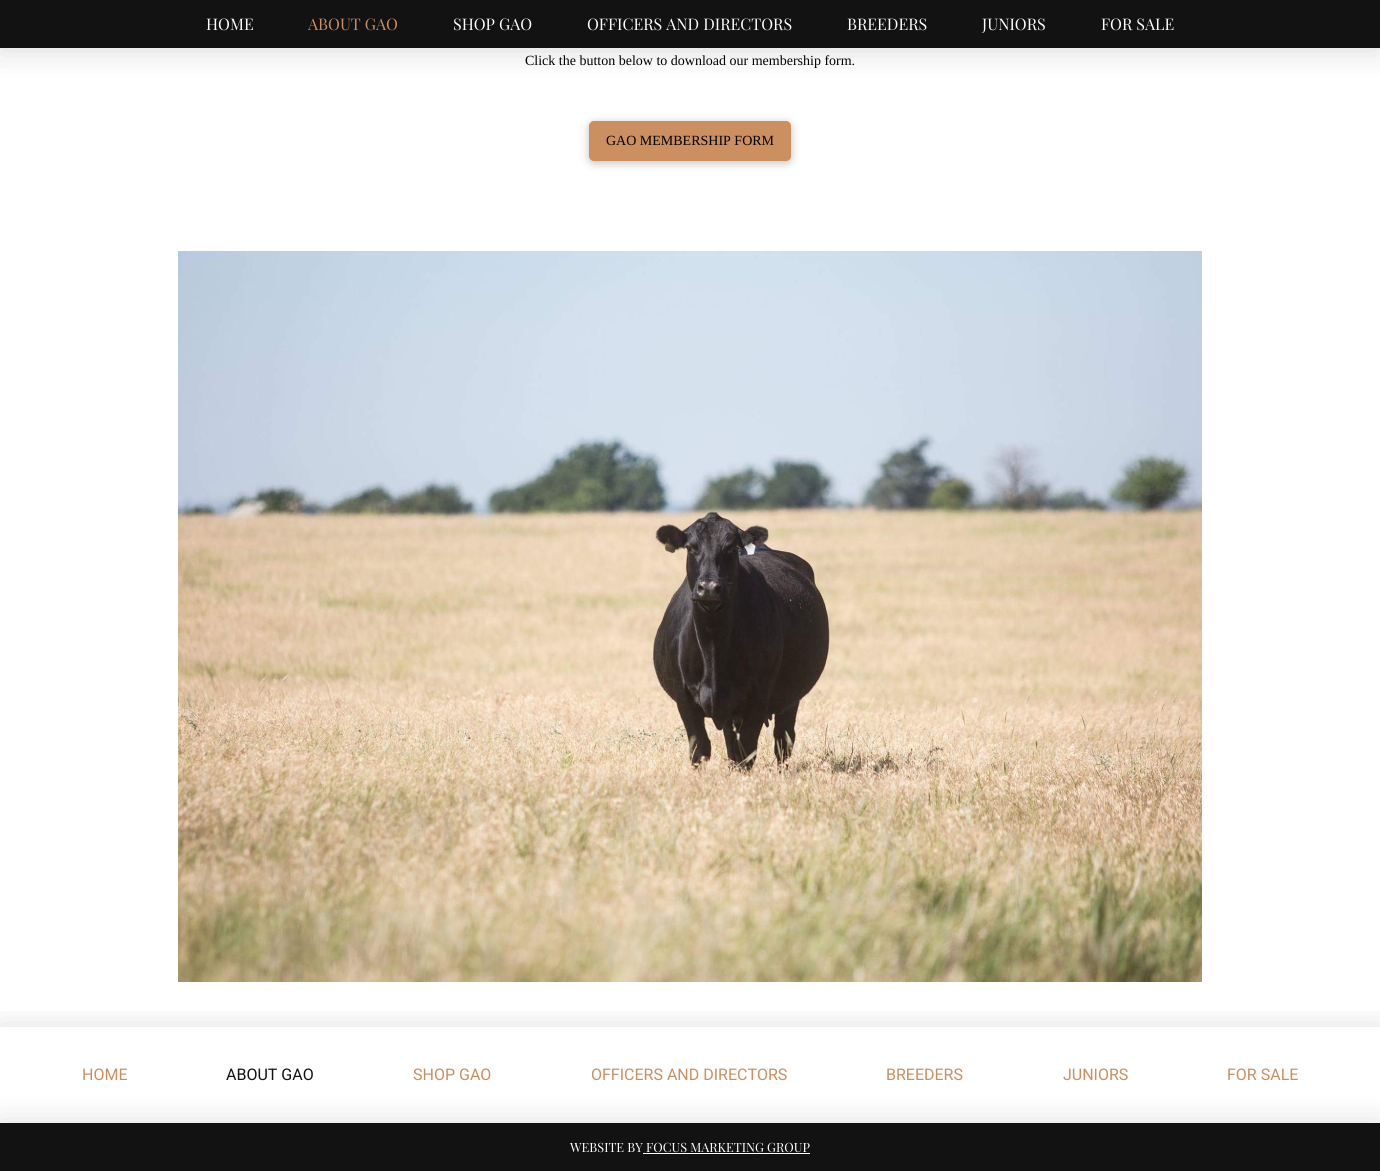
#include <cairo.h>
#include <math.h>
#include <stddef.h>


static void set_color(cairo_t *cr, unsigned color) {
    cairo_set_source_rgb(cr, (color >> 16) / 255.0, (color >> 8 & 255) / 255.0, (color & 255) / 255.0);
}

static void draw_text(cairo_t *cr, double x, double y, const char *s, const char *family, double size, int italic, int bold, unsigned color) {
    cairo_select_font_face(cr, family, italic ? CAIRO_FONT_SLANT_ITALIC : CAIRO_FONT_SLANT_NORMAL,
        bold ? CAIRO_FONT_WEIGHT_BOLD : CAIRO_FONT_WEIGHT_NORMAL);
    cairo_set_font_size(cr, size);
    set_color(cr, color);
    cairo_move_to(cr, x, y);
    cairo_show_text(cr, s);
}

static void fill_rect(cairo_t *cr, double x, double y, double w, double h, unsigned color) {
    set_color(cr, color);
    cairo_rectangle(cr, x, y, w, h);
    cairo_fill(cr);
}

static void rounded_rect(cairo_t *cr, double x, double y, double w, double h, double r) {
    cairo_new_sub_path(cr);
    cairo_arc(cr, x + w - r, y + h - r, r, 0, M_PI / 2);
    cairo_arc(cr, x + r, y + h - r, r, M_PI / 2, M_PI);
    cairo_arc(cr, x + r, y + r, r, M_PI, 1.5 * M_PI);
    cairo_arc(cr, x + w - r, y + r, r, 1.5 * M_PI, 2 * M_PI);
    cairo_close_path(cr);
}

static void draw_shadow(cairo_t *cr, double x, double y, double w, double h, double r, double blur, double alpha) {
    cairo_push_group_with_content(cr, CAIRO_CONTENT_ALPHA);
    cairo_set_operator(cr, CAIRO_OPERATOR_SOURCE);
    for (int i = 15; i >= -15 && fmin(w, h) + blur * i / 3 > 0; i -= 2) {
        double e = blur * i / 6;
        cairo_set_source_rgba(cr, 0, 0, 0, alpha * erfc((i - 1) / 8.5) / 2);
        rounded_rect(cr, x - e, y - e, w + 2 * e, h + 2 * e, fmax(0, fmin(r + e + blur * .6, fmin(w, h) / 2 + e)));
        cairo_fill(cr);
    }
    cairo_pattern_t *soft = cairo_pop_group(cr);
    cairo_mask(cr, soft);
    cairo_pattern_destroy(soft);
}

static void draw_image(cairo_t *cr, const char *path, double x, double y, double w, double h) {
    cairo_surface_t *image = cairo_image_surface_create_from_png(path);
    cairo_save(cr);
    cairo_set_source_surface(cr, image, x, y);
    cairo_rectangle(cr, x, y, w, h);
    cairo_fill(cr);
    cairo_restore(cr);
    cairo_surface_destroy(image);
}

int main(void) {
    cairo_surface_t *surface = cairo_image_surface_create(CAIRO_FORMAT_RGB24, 1380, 1171);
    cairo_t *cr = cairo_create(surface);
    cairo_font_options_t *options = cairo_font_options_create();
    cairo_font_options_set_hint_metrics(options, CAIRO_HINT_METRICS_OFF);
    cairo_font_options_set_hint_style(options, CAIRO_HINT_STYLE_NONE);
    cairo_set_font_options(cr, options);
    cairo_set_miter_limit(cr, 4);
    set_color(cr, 0xFFFFFF);
    cairo_paint(cr);
    set_color(cr, 0x000000);
    draw_shadow(cr, 0, 2, 1380, 48, 0, 16, 0.15);
    fill_rect(cr, 0, 0, 1380, 48, 0x121212);
    draw_text(cr, 206, 30, "HOME", "Playfair Display", 16, 0, 0, 0xFFFFFF);
    draw_text(cr, 308, 30, "ABOUT GAO", "Playfair Display", 16, 0, 0, 0xCB8F60);
    draw_text(cr, 453, 30, "SHOP GAO", "Playfair Display", 16, 0, 0, 0xFFFFFF);
    draw_text(cr, 587, 30, "OFFICERS AND DIRECTORS", "Playfair Display", 16, 0, 0, 0xFFFFFF);
    draw_text(cr, 847, 30, "BREEDERS", "Playfair Display", 16, 0, 0, 0xFFFFFF);
    draw_text(cr, 982, 30, "JUNIORS", "Playfair Display", 16, 0, 0, 0xFFFFFF);
    draw_text(cr, 1101, 30, "FOR SALE", "Playfair Display", 16, 0, 0, 0xFFFFFF);
    draw_text(cr, 525, 65, "Click the button below to download our membership form.", "Liberation Serif", 14, 0, 0, 0x000000);
    set_color(cr, 0x000000);
    draw_shadow(cr, 589, 123, 202, 40, 5, 4.5, 0.25);
    set_color(cr, 0xCB8F60);
    rounded_rect(cr, 589, 121, 202, 40, 5);
    cairo_fill(cr);
    draw_text(cr, 606, 145, "GAO MEMBERSHIP FORM", "Liberation Serif", 14, 0, 0, 0x000000);
    draw_image(cr, "assets/img1.png", 178, 251, 1024, 731);
    cairo_save(cr);
    cairo_rectangle(cr, 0, 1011, 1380, 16);
    cairo_clip(cr);
    set_color(cr, 0x000000);
    draw_shadow(cr, 0, 1029, 1380, 96, 0, 16, 0.15);
    cairo_restore(cr);
    draw_text(cr, 82, 1080, "HOME", "Heebo", 16, 0, 0, 0xCB8F60);
    draw_text(cr, 226, 1080, "ABOUT GAO", "Heebo", 16, 0, 0, 0x121212);
    draw_text(cr, 413, 1080, "SHOP GAO", "Heebo", 16, 0, 0, 0xCB8F60);
    draw_text(cr, 591, 1080, "OFFICERS AND DIRECTORS", "Heebo", 16, 0, 0, 0xCB8F60);
    draw_text(cr, 886, 1080, "BREEDERS", "Heebo", 16, 0, 0, 0xCB8F60);
    draw_text(cr, 1063, 1080, "JUNIORS", "Heebo", 16, 0, 0, 0xCB8F60);
    draw_text(cr, 1227, 1080, "FOR SALE", "Heebo", 16, 0, 0, 0xCB8F60);
    set_color(cr, 0x000000);
    draw_shadow(cr, 0, 1125, 1380, 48, 0, 16, 0.15);
    fill_rect(cr, 0, 1123, 1380, 48, 0x121212);
    draw_text(cr, 570, 1152, "WEBSITE BY FOCUS MARKETING GROUP", "Playfair Display", 12.75, 0, 0, 0xFFFFFF);
    fill_rect(cr, 643, 1153, 167, 1, 0xFFFFFF);
    cairo_surface_write_to_png(surface, "output.png");
    cairo_font_options_destroy(options);
    cairo_destroy(cr);
    cairo_surface_destroy(surface);
    return 0;
}
